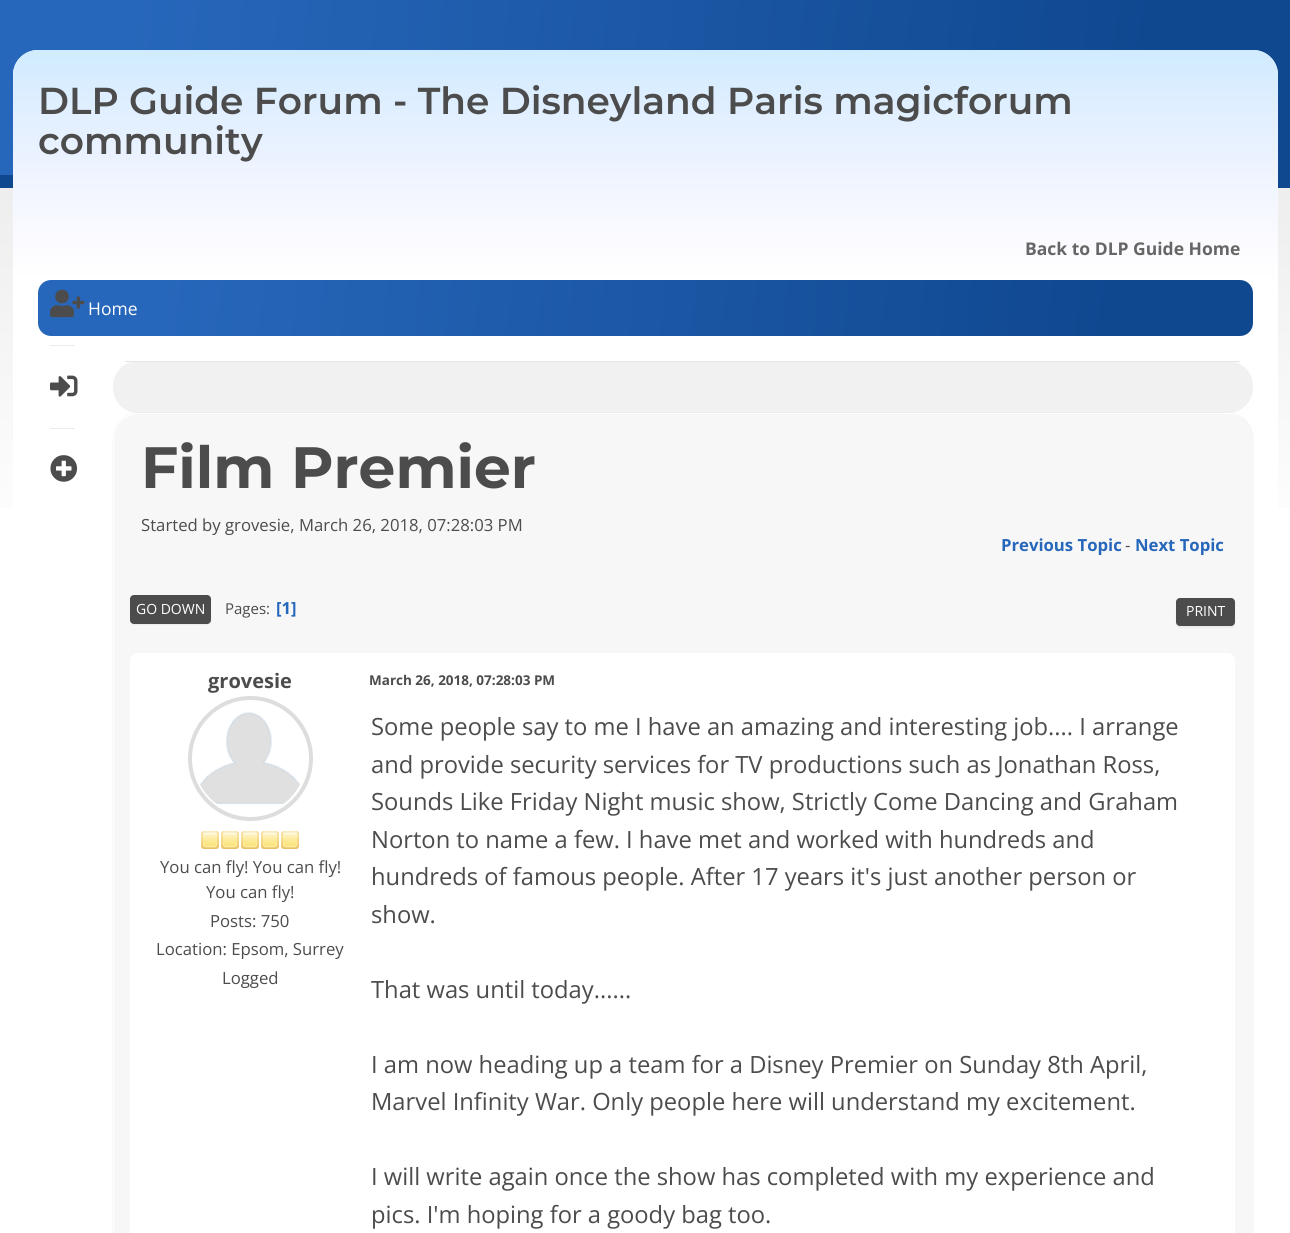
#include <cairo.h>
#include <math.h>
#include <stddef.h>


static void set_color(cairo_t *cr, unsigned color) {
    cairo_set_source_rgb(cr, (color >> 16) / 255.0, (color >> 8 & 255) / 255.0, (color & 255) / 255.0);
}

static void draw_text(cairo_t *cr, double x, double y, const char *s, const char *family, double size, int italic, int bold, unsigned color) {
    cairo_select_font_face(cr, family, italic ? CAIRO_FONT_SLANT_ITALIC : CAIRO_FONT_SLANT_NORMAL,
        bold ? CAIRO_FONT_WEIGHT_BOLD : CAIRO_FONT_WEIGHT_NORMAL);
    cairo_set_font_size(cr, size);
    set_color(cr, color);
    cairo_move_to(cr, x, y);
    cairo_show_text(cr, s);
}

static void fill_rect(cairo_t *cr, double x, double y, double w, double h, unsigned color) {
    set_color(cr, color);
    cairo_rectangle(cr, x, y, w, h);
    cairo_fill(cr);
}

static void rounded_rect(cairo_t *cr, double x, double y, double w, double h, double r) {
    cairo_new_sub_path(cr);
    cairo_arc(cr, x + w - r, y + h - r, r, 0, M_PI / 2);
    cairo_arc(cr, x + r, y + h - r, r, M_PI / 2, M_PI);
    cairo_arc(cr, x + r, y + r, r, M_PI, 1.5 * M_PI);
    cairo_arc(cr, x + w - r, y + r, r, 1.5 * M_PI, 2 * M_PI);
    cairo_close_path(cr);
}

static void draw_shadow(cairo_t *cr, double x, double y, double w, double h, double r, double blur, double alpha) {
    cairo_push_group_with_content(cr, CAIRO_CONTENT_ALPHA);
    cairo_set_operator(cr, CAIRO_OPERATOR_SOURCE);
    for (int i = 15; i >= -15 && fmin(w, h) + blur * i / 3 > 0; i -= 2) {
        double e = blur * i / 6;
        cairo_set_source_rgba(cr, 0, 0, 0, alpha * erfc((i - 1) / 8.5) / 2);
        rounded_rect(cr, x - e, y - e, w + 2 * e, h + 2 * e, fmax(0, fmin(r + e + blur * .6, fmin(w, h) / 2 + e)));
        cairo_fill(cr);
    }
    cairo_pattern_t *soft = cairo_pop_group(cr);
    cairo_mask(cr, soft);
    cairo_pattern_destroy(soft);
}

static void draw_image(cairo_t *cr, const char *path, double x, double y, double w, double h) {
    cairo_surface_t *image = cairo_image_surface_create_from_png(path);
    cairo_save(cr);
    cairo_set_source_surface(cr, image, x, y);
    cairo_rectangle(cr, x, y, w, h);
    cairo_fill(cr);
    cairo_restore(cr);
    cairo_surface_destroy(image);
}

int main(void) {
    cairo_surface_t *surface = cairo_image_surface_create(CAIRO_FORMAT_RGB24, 1290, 1233);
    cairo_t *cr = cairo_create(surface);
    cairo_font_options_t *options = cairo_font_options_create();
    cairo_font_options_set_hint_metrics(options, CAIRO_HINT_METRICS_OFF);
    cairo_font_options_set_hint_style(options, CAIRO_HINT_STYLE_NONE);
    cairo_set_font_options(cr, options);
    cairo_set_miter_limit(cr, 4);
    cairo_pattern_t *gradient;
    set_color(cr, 0xFFFFFF);
    cairo_paint(cr);
    gradient = cairo_pattern_create_linear(-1.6, 14, 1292, 161);
    cairo_pattern_add_color_stop_rgba(gradient, 0.1, 0.153, 0.404, 0.733, 1);
    cairo_pattern_add_color_stop_rgba(gradient, 0.88, 0.063, 0.282, 0.565, 1);
    cairo_set_source(cr, gradient);
    cairo_pattern_destroy(gradient);
    cairo_rectangle(cr, 0, 0, 1290, 175);
    cairo_fill(cr);
    fill_rect(cr, 0, 175, 1290, 13, 0x104890);
    gradient = cairo_pattern_create_linear(645, 563, 645, 188);
    cairo_pattern_add_color_stop_rgba(gradient, 0, 1, 1, 1, 1);
    cairo_pattern_add_color_stop_rgba(gradient, 1, 0.933, 0.933, 0.933, 1);
    cairo_set_source(cr, gradient);
    cairo_pattern_destroy(gradient);
    cairo_rectangle(cr, 0, 188, 1290, 320);
    cairo_fill(cr);
    set_color(cr, 0xFFFFFF);
    rounded_rect(cr, 13, 50, 1265, 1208, 25);
    cairo_fill(cr);
    gradient = cairo_pattern_create_linear(645, 50, 645, 280);
    cairo_pattern_add_color_stop_rgba(gradient, 0, 0.816, 0.922, 1, 1);
    cairo_pattern_add_color_stop_rgba(gradient, 0.25, 0.878, 0.937, 1, 1);
    cairo_pattern_add_color_stop_rgba(gradient, 0.5, 0.929, 0.953, 1, 1);
    cairo_pattern_add_color_stop_rgba(gradient, 0.75, 0.973, 0.976, 1, 1);
    cairo_pattern_add_color_stop_rgba(gradient, 1, 1, 1, 1, 1);
    cairo_set_source(cr, gradient);
    cairo_pattern_destroy(gradient);
    cairo_new_path(cr);
    cairo_move_to(cr, 38, 50);
    cairo_line_to(cr, 1253, 50);
    cairo_curve_to(cr, 1267, 50, 1278, 61, 1278, 75);
    cairo_line_to(cr, 1278, 280);
    cairo_line_to(cr, 13, 280);
    cairo_line_to(cr, 13, 75);
    cairo_curve_to(cr, 13, 61, 24, 50, 38, 50);
    cairo_close_path(cr);
    cairo_fill(cr);
    draw_text(cr, 38, 114, "DLP Guide Forum - The Disneyland Paris magicforum", "Montserrat SemiBold", 37.5, 0, 0, 0x4C4C4C);
    draw_text(cr, 38, 154, "community", "Montserrat SemiBold", 37.5, 0, 0, 0x4C4C4C);
    draw_text(cr, 1025, 255, "Back to DLP Guide Home", "Open Sans", 17.5, 0, 1, 0x666666);
    gradient = cairo_pattern_create_linear(42, 239, 1248, 377);
    cairo_pattern_add_color_stop_rgba(gradient, 0.1, 0.153, 0.404, 0.733, 1);
    cairo_pattern_add_color_stop_rgba(gradient, 0.88, 0.063, 0.282, 0.565, 1);
    cairo_set_source(cr, gradient);
    cairo_pattern_destroy(gradient);
    rounded_rect(cr, 38, 280, 1215, 56, 13);
    cairo_fill(cr);
    draw_text(cr, 88, 315, "Home", "Open Sans", 17.5, 0, 0, 0xFFFFFF);
    draw_image(cr, "assets/img1.png", 50, 289, 35, 29);
    fill_rect(cr, 50, 345, 25, 1, 0xEBEBEB);
    draw_image(cr, "assets/img2.png", 50, 375, 28, 22);
    fill_rect(cr, 50, 428, 25, 1, 0xEBEBEB);
    draw_image(cr, "assets/img3.png", 50, 455, 28, 27);
    set_color(cr, 0xF1F1F1);
    rounded_rect(cr, 113, 361, 1140, 52, 25);
    cairo_fill(cr);
    fill_rect(cr, 125, 361, 1115, 1, 0xE5E5E5);
    set_color(cr, 0x000000);
    draw_shadow(cr, 113, 413, 1140, 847, 25, 0.5, 0.1);
    set_color(cr, 0xF7F7F7);
    rounded_rect(cr, 113, 413, 1140, 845, 25);
    cairo_fill(cr);
    set_color(cr, 0xFFFFFF);
    cairo_new_path(cr);
    cairo_move_to(cr, 139, 414);
    cairo_line_to(cr, 1229, 414);
    cairo_curve_to(cr, 1235, 414, 1241, 416, 1245, 420);
    cairo_curve_to(cr, 1240, 415, 1235, 413, 1228, 413);
    cairo_line_to(cr, 138, 413);
    cairo_curve_to(cr, 124, 413, 113, 424, 113, 438);
    cairo_line_to(cr, 113, 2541);
    cairo_curve_to(cr, 113, 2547, 115, 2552, 118, 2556);
    cairo_curve_to(cr, 115, 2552, 114, 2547, 114, 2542);
    cairo_line_to(cr, 114, 439);
    cairo_curve_to(cr, 114, 425, 125, 414, 139, 414);
    cairo_close_path(cr);
    cairo_fill(cr);
    draw_text(cr, 141, 488, "Film Premier", "Montserrat", 58.25, 0, 1, 0x4C4C4C);
    draw_text(cr, 141, 531, "Started by grovesie, March 26, 2018, 07:28:03 PM", "Open Sans", 16.7, 0, 0, 0x4C4C4C);
    draw_text(cr, 1001, 551, "Previous Topic", "Open Sans", 16.7, 0, 1, 0x2767BB);
    draw_text(cr, 1125, 551, "-", "Open Sans", 16.7, 0, 0, 0x4C4C4C);
    draw_text(cr, 1135, 551, "Next Topic", "Open Sans", 16.7, 0, 1, 0x2767BB);
    set_color(cr, 0x000000);
    draw_shadow(cr, 130, 596, 81, 29, 4, 0.5, 0.05);
    set_color(cr, 0x4C4C4C);
    rounded_rect(cr, 130, 595, 81, 29, 4);
    cairo_fill(cr);
    draw_text(cr, 136, 614, "GO DOWN", "Open Sans", 14, 0, 0, 0xFFFFFF);
    draw_text(cr, 225, 614, "Pages:", "Open Sans", 15, 0, 0, 0x4C4C4C);
    draw_text(cr, 276, 614, "[1]", "Open Sans", 16.7, 0, 1, 0x2767BB);
    set_color(cr, 0x000000);
    draw_shadow(cr, 1176, 599, 59, 29, 4, 0.5, 0.05);
    set_color(cr, 0x4C4C4C);
    rounded_rect(cr, 1176, 598, 59, 28, 4);
    cairo_fill(cr);
    draw_text(cr, 1186, 616, "PRINT", "Open Sans", 14, 0, 0, 0xFFFFFF);
    rounded_rect(cr, 130, 653, 1105, 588, 8);
    cairo_fill(cr);
    draw_text(cr, 208, 688, "grovesie", "Open Sans", 20, 0, 1, 0x4C4C4C);
    cairo_new_path(cr);
    cairo_arc(cr, 250.5, 758.5, 60.5, 0, 2 * M_PI);
    set_color(cr, 0xDDDDDD);
    cairo_set_line_width(cr, 4);
    cairo_stroke(cr);
    draw_image(cr, "assets/img4.png", 200, 712, 100, 92);
    draw_image(cr, "assets/img5.png", 201, 831, 18, 18);
    draw_image(cr, "assets/img5.png", 221, 831, 18, 18);
    draw_image(cr, "assets/img6.png", 241, 831, 18, 18);
    draw_image(cr, "assets/img5.png", 261, 831, 18, 18);
    draw_image(cr, "assets/img7.png", 281, 831, 18, 18);
    draw_text(cr, 160, 873, "You can fly! You can fly!", "Open Sans", 16.7, 0, 0, 0x4C4C4C);
    draw_text(cr, 206, 898, "You can fly!", "Open Sans", 16.7, 0, 0, 0x4C4C4C);
    draw_text(cr, 210, 927, "Posts: 750", "Open Sans", 16.7, 0, 0, 0x4C4C4C);
    draw_text(cr, 156, 955, "Location: Epsom, Surrey", "Open Sans", 16.7, 0, 0, 0x4C4C4C);
    draw_text(cr, 222, 984, "Logged", "Open Sans", 16.7, 0, 0, 0x4C4C4C);
    draw_text(cr, 369, 685, "March 26, 2018, 07:28:03 PM", "Open Sans", 13.5, 0, 1, 0x4C4C4C);
    draw_text(cr, 371, 735, "Some people say to me I have an amazing and interesting job.... I arrange", "Open Sans", 23.75, 0, 0, 0x4C4C4C);
    draw_text(cr, 371, 773, "and provide security services for TV productions such as Jonathan Ross,", "Open Sans", 23.75, 0, 0, 0x4C4C4C);
    draw_text(cr, 371, 810, "Sounds Like Friday Night music show, Strictly Come Dancing and Graham", "Open Sans", 23.75, 0, 0, 0x4C4C4C);
    draw_text(cr, 371, 848, "Norton to name a few. I have met and worked with hundreds and", "Open Sans", 23.75, 0, 0, 0x4C4C4C);
    draw_text(cr, 371, 885, "hundreds of famous people. After 17 years it's just another person or", "Open Sans", 23.75, 0, 0, 0x4C4C4C);
    draw_text(cr, 371, 923, "show.", "Open Sans", 23.75, 0, 0, 0x4C4C4C);
    draw_text(cr, 371, 998, "That was until today......", "Open Sans", 23.75, 0, 0, 0x4C4C4C);
    draw_text(cr, 371, 1073, "I am now heading up a team for a Disney Premier on Sunday 8th April,", "Open Sans", 23.75, 0, 0, 0x4C4C4C);
    draw_text(cr, 371, 1110, "Marvel Infinity War. Only people here will understand my excitement.", "Open Sans", 23.75, 0, 0, 0x4C4C4C);
    draw_text(cr, 371, 1185, "I will write again once the show has completed with my experience and", "Open Sans", 23.75, 0, 0, 0x4C4C4C);
    draw_text(cr, 371, 1223, "pics. I'm hoping for a goody bag too.", "Open Sans", 23.75, 0, 0, 0x4C4C4C);
    cairo_surface_write_to_png(surface, "output.png");
    cairo_font_options_destroy(options);
    cairo_destroy(cr);
    cairo_surface_destroy(surface);
    return 0;
}
